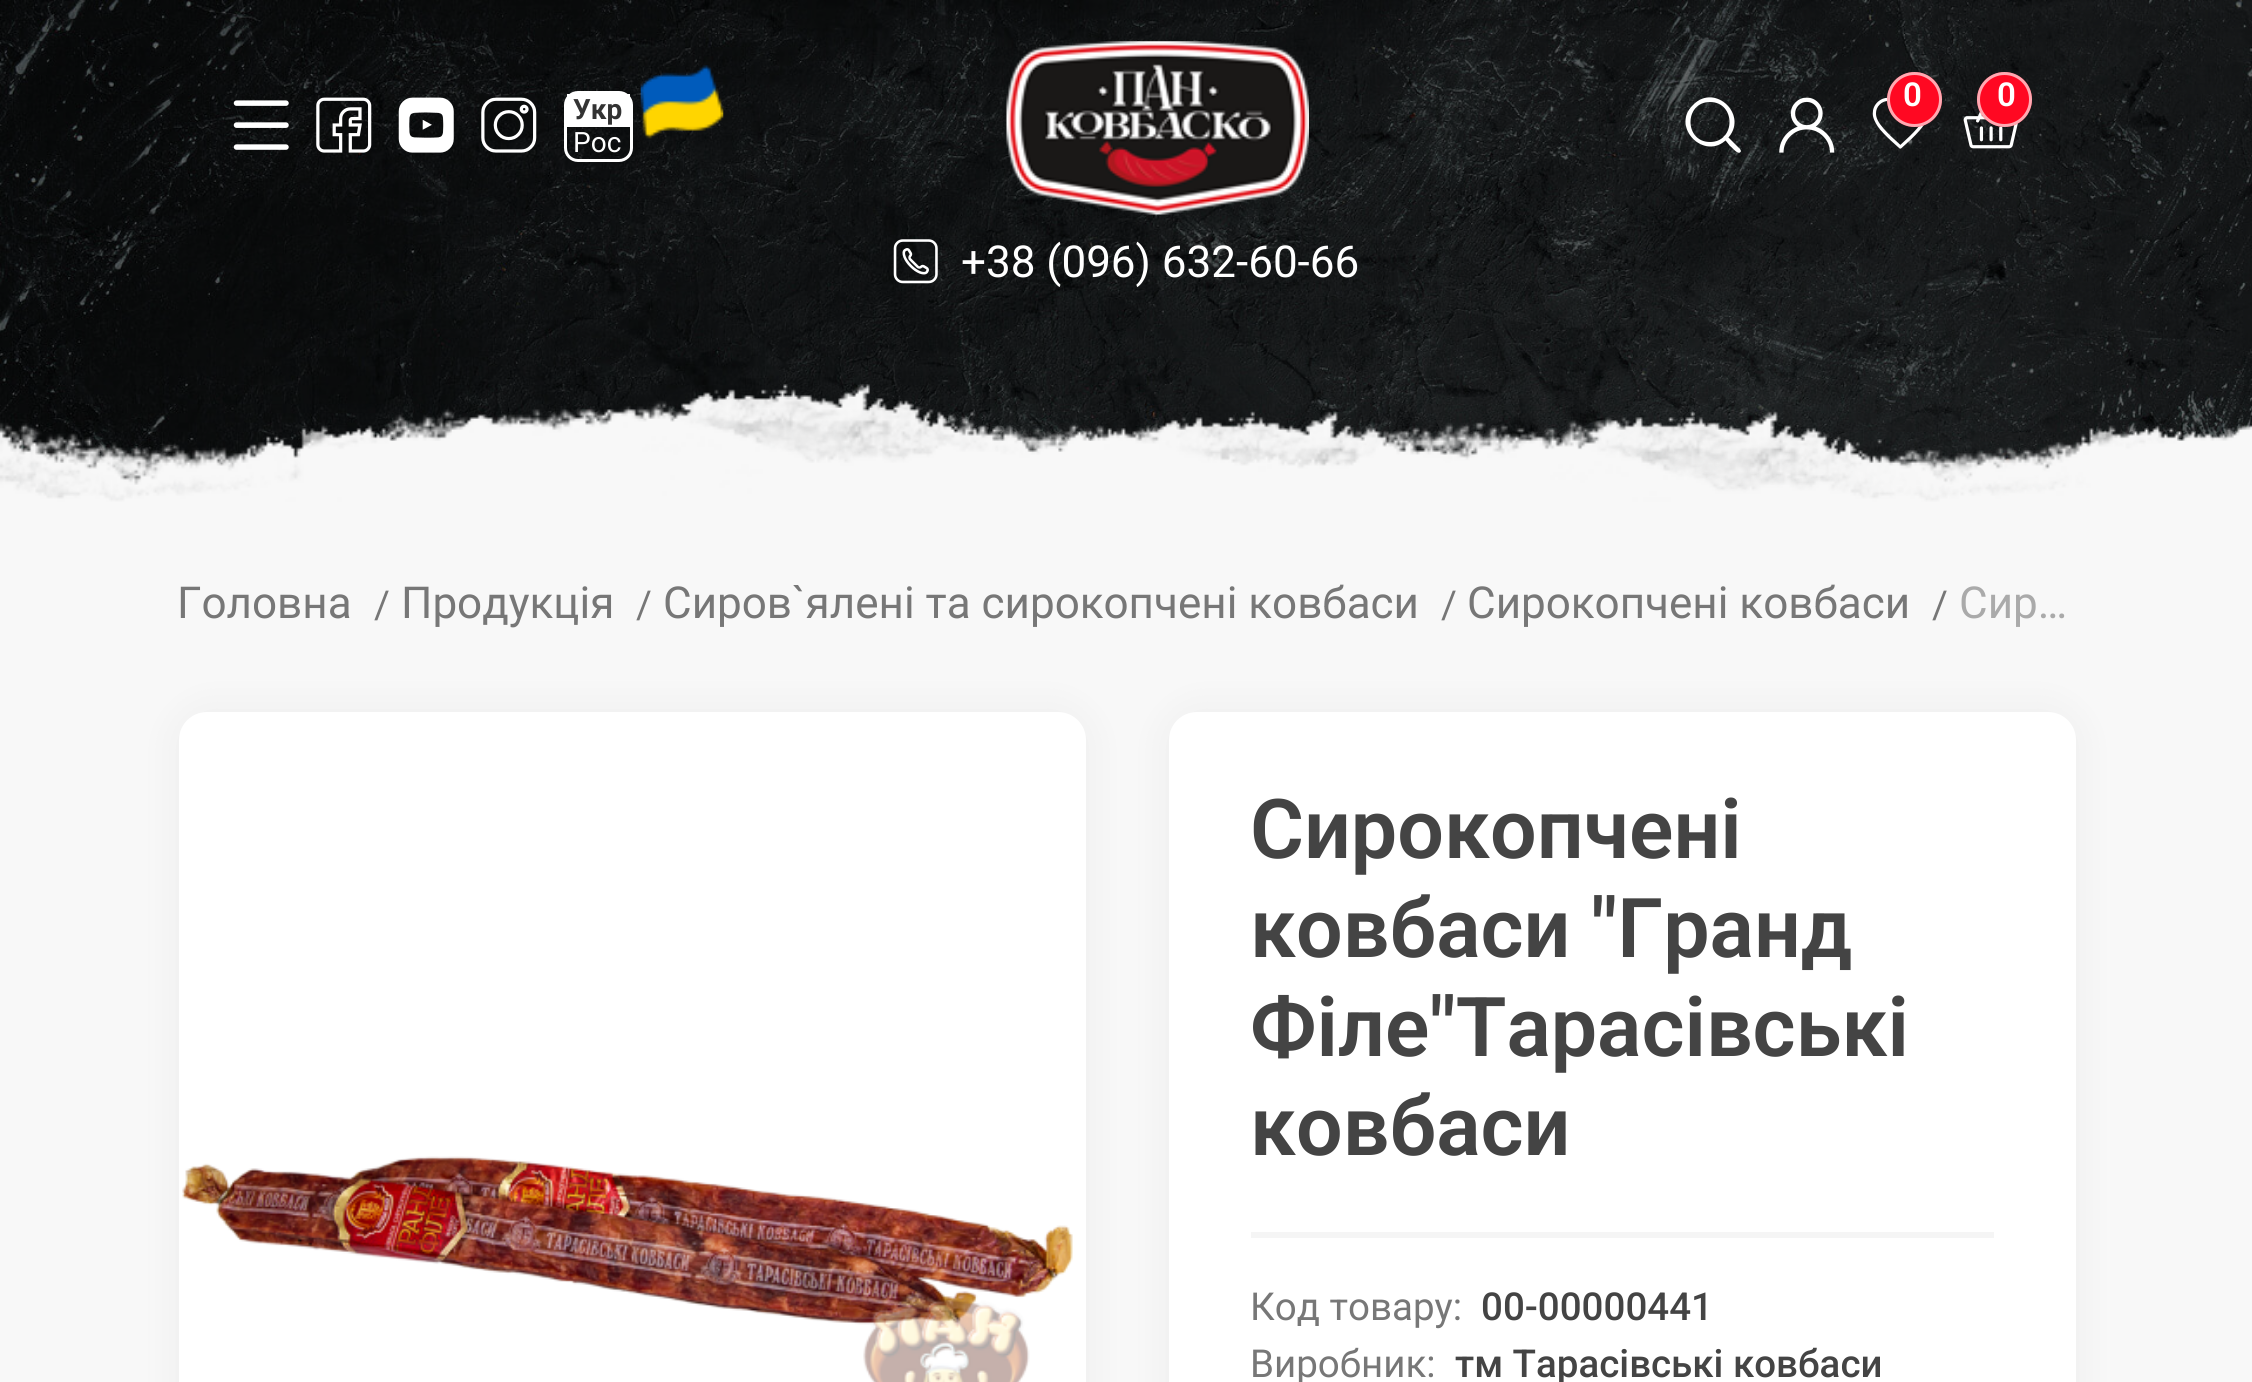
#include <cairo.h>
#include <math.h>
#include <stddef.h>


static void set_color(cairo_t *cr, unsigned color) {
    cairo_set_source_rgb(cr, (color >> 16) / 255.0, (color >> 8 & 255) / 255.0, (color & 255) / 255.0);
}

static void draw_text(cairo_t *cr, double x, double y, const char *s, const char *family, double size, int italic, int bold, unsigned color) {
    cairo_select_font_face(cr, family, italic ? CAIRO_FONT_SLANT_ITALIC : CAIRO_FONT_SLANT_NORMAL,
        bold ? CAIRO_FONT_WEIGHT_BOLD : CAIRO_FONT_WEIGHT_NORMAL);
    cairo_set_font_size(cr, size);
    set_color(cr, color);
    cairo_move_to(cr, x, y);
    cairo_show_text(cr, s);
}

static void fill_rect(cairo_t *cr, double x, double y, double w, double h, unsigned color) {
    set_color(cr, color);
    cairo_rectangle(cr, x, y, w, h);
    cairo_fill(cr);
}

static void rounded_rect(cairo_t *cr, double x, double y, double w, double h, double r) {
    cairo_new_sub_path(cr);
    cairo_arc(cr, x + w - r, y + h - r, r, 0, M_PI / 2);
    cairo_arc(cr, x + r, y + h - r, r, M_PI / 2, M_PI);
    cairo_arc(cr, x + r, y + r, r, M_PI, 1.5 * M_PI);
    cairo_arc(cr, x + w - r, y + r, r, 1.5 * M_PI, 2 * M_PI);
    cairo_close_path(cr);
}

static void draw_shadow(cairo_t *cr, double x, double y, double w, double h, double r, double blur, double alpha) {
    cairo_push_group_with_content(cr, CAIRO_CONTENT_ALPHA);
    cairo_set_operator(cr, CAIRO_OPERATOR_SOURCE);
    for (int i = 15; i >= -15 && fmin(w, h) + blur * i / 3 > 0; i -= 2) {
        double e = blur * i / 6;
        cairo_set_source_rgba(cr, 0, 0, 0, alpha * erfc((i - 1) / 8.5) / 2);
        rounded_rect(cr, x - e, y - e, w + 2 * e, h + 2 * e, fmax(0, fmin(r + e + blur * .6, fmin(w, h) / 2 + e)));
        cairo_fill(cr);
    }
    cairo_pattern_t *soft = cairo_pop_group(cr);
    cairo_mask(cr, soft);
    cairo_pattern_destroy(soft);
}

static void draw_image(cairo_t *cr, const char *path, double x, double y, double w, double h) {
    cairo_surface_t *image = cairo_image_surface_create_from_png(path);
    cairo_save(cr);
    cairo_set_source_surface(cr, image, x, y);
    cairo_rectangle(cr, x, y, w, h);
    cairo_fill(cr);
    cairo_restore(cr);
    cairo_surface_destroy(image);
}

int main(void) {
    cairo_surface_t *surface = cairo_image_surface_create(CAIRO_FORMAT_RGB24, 2252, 1382);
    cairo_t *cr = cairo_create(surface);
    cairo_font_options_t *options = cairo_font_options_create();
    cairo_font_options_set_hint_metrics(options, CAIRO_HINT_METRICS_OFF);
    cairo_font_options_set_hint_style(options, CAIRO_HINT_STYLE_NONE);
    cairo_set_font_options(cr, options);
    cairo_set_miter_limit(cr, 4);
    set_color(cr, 0xFFFFFF);
    cairo_paint(cr);
    draw_image(cr, "assets/img1.png", 0, 0, 2252, 502);
    draw_image(cr, "assets/img2.png", 1006, 41, 303, 174);
    draw_image(cr, "assets/img3.png", 1872, 97, 53, 52);
    set_color(cr, 0xFF0822);
    cairo_arc(cr, 1914.5, 99.5, 27.5, 0, 2 * M_PI);
    cairo_fill(cr);
    cairo_arc(cr, 1914.5, 99.5, 26, 0, 2 * M_PI);
    cairo_set_source_rgba(cr, 1, 1, 1, 0.65);
    cairo_set_line_width(cr, 3);
    cairo_stroke(cr);
    draw_text(cr, 1903, 106, "0", "Roboto SemiBold", 33, 0, 0, 0xFFFFFF);
    draw_image(cr, "assets/img4.png", 1963, 111, 56, 38);
    set_color(cr, 0xFF0822);
    cairo_arc(cr, 2004.5, 99.5, 27.5, 0, 2 * M_PI);
    cairo_fill(cr);
    cairo_arc(cr, 2004.5, 99.5, 26, 0, 2 * M_PI);
    cairo_set_source_rgba(cr, 1, 1, 1, 0.65);
    cairo_stroke(cr);
    draw_text(cr, 1997, 106, "0", "Roboto SemiBold", 33, 0, 0, 0xFFFFFF);
    cairo_new_path(cr);
    cairo_move_to(cr, 1693, 105);
    cairo_curve_to(cr, 1715, 82, 1750, 116, 1727, 139);
    cairo_curve_to(cr, 1705, 162, 1670, 127, 1693, 105);
    cairo_close_path(cr);
    cairo_move_to(cr, 1710, 142);
    cairo_curve_to(cr, 1736, 142, 1736, 102, 1710, 102);
    cairo_curve_to(cr, 1684, 102, 1684, 142, 1710, 142);
    cairo_close_path(cr);
    cairo_move_to(cr, 1740, 149);
    cairo_line_to(cr, 1741, 151);
    cairo_curve_to(cr, 1739, 157, 1731, 146, 1730, 146);
    cairo_line_to(cr, 1726, 141);
    cairo_curve_to(cr, 1725, 140, 1722, 138, 1724, 136);
    cairo_curve_to(cr, 1725, 135, 1726, 135, 1727, 136);
    cairo_close_path(cr);
    cairo_fill(cr);
    draw_image(cr, "assets/img5.png", 1779, 97, 56, 56);
    draw_image(cr, "assets/img6.png", 233, 100, 56, 50);
    draw_image(cr, "assets/img7.png", 316, 97, 56, 56);
    draw_image(cr, "assets/img8.png", 398, 97, 56, 56);
    draw_image(cr, "assets/img9.png", 481, 97, 56, 56);
    rounded_rect(cr, 565.5, 92.5, 66, 68, 12.5);
    cairo_stroke(cr);
    fill_rect(cr, 567, 94, 63, 33, 0xFFFFFF);
    draw_text(cr, 573, 119, "Укр", "Roboto", 28, 0, 1, 0x333333);
    draw_image(cr, "assets/img10.png", 640, 65, 84, 74);
    draw_text(cr, 573, 152, "Рос", "Roboto", 28, 0, 0, 0xFFFFFF);
    draw_image(cr, "assets/img11.png", 893, 239, 45, 45);
    draw_text(cr, 961, 277, "+38 (096) 632-60-66", "Roboto", 44, 0, 0, 0xFFFFFF);
    fill_rect(cr, 0, 503, 2252, 879, 0xF8F8F8);
    draw_image(cr, "assets/img12.png", 0, 384, 2252, 119);
    draw_text(cr, 177, 618, "Головна", "Roboto", 44, 0, 0, 0x777777);
    draw_text(cr, 374, 618, "/", "Roboto", 38.5, 0, 0, 0x777777);
    draw_text(cr, 401, 618, "Продукція", "Roboto", 44, 0, 0, 0x777777);
    draw_text(cr, 636, 618, "/", "Roboto", 38.5, 0, 0, 0x777777);
    draw_text(cr, 663, 618, "Сиров`ялені та сирокопчені ковбаси", "Roboto", 44, 0, 0, 0x777777);
    draw_text(cr, 1441, 618, "/", "Roboto", 38.5, 0, 0, 0x777777);
    draw_text(cr, 1467, 618, "Сирокопчені ковбаси", "Roboto", 44, 0, 0, 0x777777);
    draw_text(cr, 1932, 618, "/", "Roboto", 38.5, 0, 0, 0x777777);
    draw_text(cr, 1959, 618, "Сир…", "Roboto", 44, 0, 0, 0xAAAAAA);
    set_color(cr, 0x000000);
    draw_shadow(cr, 179, 712, 907, 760, 28, 20.5, 0.05);
    set_color(cr, 0xFFFFFF);
    rounded_rect(cr, 179, 712, 907, 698, 28);
    cairo_fill(cr);
    draw_image(cr, "assets/img13.png", 182, 1156, 891, 226);
    set_color(cr, 0x000000);
    draw_shadow(cr, 1169, 712, 907, 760, 28, 20.5, 0.05);
    set_color(cr, 0xFFFFFF);
    rounded_rect(cr, 1169, 712, 907, 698, 28);
    cairo_fill(cr);
    fill_rect(cr, 1251, 1232, 743, 6, 0xF5F5F5);
    draw_text(cr, 1250, 858, "Сирокопчені", "Roboto SemiBold", 82.5, 0, 0, 0x444444);
    draw_text(cr, 1250, 957, "ковбаси \"Гранд", "Roboto SemiBold", 82.5, 0, 0, 0x444444);
    draw_text(cr, 1250, 1056, "Філе\"Тарасівські", "Roboto SemiBold", 82.5, 0, 0, 0x444444);
    draw_text(cr, 1250, 1155, "ковбаси", "Roboto SemiBold", 82.5, 0, 0, 0x444444);
    draw_text(cr, 1250, 1320, "Код товару:", "Roboto", 38.5, 0, 0, 0x777777);
    draw_text(cr, 1481, 1320, "00-00000441", "Roboto Medium", 38.5, 0, 0, 0x444444);
    draw_text(cr, 1250, 1377, "Виробник:", "Roboto", 38.5, 0, 0, 0x777777);
    draw_text(cr, 1455, 1377, "тм Тарасівські ковбаси", "Roboto Medium", 38.5, 0, 0, 0x444444);
    cairo_surface_write_to_png(surface, "output.png");
    cairo_font_options_destroy(options);
    cairo_destroy(cr);
    cairo_surface_destroy(surface);
    return 0;
}
